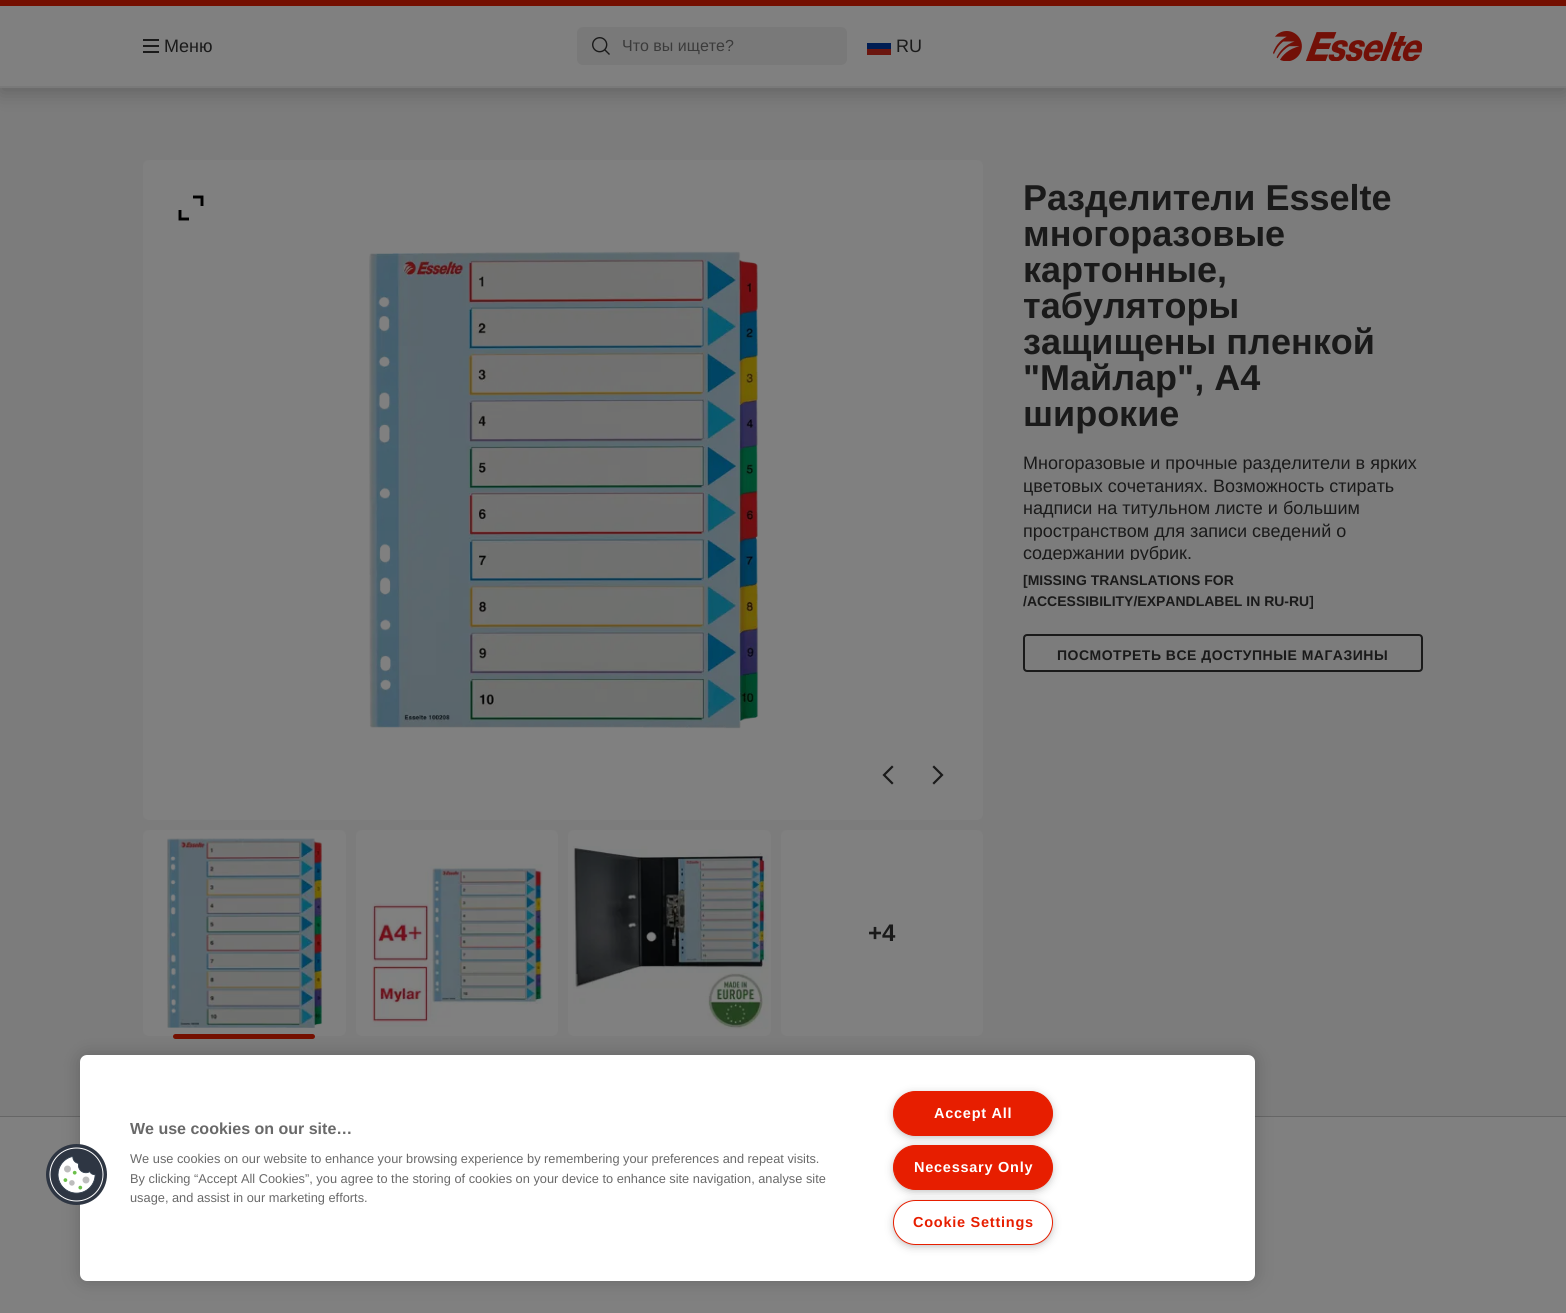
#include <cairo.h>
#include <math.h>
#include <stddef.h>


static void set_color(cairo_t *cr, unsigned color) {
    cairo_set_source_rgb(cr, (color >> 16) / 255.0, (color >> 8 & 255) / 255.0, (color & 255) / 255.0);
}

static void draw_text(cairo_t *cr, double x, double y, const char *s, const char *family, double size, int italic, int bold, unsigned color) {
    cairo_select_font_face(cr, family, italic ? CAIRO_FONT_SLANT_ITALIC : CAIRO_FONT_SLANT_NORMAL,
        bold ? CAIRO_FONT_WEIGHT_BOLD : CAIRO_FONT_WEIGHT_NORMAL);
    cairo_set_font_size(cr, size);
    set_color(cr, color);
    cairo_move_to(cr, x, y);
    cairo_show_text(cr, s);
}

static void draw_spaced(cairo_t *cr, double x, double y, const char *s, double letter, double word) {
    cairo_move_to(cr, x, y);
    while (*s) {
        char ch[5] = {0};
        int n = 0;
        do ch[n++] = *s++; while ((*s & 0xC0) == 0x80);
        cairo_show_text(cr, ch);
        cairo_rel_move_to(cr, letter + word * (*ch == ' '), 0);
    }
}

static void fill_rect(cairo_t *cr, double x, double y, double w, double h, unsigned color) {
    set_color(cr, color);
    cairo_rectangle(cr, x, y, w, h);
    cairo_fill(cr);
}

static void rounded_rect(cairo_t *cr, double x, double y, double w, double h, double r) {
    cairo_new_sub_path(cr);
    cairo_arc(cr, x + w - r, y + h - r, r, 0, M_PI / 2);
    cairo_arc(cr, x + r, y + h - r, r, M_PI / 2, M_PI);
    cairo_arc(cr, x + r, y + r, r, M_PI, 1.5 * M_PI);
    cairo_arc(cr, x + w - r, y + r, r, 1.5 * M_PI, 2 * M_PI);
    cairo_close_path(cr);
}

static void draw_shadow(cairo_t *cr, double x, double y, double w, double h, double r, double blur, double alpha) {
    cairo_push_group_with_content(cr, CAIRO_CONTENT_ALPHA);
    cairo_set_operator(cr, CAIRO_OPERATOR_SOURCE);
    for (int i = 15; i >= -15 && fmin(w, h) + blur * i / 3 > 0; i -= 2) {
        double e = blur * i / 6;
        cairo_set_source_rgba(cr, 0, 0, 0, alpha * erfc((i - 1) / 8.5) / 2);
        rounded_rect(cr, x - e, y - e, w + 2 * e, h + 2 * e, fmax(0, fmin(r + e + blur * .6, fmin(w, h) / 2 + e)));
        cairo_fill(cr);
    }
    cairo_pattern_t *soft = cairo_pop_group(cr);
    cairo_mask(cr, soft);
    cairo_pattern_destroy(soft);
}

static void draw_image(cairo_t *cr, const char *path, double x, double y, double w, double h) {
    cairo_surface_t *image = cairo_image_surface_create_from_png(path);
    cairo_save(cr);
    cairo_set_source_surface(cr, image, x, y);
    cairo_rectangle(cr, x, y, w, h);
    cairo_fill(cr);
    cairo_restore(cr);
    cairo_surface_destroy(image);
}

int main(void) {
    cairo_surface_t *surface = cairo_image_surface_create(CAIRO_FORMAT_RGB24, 1566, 1313);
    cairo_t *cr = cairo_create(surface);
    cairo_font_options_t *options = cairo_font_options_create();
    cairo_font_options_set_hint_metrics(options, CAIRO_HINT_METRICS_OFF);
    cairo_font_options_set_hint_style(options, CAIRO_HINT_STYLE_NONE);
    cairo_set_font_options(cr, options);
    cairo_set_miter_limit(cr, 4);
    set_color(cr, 0x808080);
    cairo_paint(cr);
    fill_rect(cr, 0, 88, 1566, 1028, 0x7C7C7C);
    set_color(cr, 0x000000);
    draw_shadow(cr, 0, 5, 1566, 88, 0, 10, 0.2);
    fill_rect(cr, 0, 6, 1566, 80, 0x808080);
    fill_rect(cr, 0, 0, 1566, 6, 0x740F00);
    fill_rect(cr, 0, 86, 1566, 2, 0x797979);
    fill_rect(cr, 143, 45, 16, 2, 0x1A1A1A);
    fill_rect(cr, 143, 39, 16, 2, 0x1A1A1A);
    fill_rect(cr, 143, 51, 16, 2, 0x1A1A1A);
    draw_text(cr, 164, 52, "Меню", "Liberation Sans", 18, 0, 0, 0x1A1A1A);
    set_color(cr, 0x797979);
    rounded_rect(cr, 577, 27, 270, 38, 6);
    cairo_fill(cr);
    draw_image(cr, "assets/img1.png", 592, 37, 18, 18);
    draw_text(cr, 622, 51, "Что вы ищете?", "Liberation Sans", 16, 0, 0, 0x3B3B3B);
    fill_rect(cr, 867, 43, 24, 6, 0x001D53);
    fill_rect(cr, 867, 49, 24, 6, 0x6B160F);
    draw_text(cr, 896, 52, "RU", "Liberation Sans", 18, 0, 0, 0x1A1A1A);
    draw_image(cr, "assets/img2.png", 1273, 31, 149, 30);
    draw_text(cr, 1023, 210, "Разделители Esselte", "Liberation Sans", 36, 0, 1, 0x1A1A1A);
    draw_text(cr, 1023, 246, "многоразовые", "Liberation Sans", 36, 0, 1, 0x1A1A1A);
    draw_text(cr, 1023, 282, "картонные,", "Liberation Sans", 36, 0, 1, 0x1A1A1A);
    draw_text(cr, 1023, 318, "табуляторы", "Liberation Sans", 36, 0, 1, 0x1A1A1A);
    draw_text(cr, 1023, 354, "защищены пленкой", "Liberation Sans", 36, 0, 1, 0x1A1A1A);
    draw_text(cr, 1023, 390, "\"Майлар\", А4", "Liberation Sans", 36, 0, 1, 0x1A1A1A);
    draw_text(cr, 1023, 426, "широкие", "Liberation Sans", 36, 0, 1, 0x1A1A1A);
    draw_text(cr, 1023, 469, "Многоразовые и прочные разделители в ярких", "Liberation Sans", 18, 0, 0, 0x1A1A1A);
    draw_text(cr, 1023, 492, "цветовых сочетаниях. Возможность стирать", "Liberation Sans", 18, 0, 0, 0x1A1A1A);
    draw_text(cr, 1023, 514, "надписи на титульном листе и большим", "Liberation Sans", 18, 0, 0, 0x1A1A1A);
    draw_text(cr, 1023, 537, "пространством для записи сведений о", "Liberation Sans", 18, 0, 0, 0x1A1A1A);
    cairo_save(cr);
    cairo_rectangle(cr, 1023, 452, 400, 108);
    cairo_clip(cr);
    draw_text(cr, 1023, 559, "содержании рубрик.", "Liberation Sans", 18, 0, 0, 0x1A1A1A);
    cairo_restore(cr);
    draw_text(cr, 1023, 585, "[MISSING TRANSLATIONS FOR", "Liberation Sans", 14, 0, 1, 0x1A1A1A);
    draw_text(cr, 1023, 606, "/ACCESSIBILITY/EXPANDLABEL IN RU-RU]", "Liberation Sans", 14, 0, 1, 0x1A1A1A);
    rounded_rect(cr, 1024, 635, 398, 36, 3);
    cairo_stroke(cr);
    draw_spaced(cr, 1057, 660, "ПОСМОТРЕТЬ ВСЕ ДОСТУПНЫЕ МАГАЗИНЫ", 0.5, 0);
    set_color(cr, 0x808080);
    rounded_rect(cr, 143, 160, 840, 660, 6);
    cairo_fill(cr);
    cairo_new_path(cr);
    cairo_move_to(cr, 193, 197);
    cairo_line_to(cr, 202, 197);
    cairo_line_to(cr, 202, 206);
    cairo_move_to(cr, 189, 219);
    cairo_line_to(cr, 180, 219);
    cairo_line_to(cr, 180, 210);
    set_color(cr, 0x000000);
    cairo_set_line_width(cr, 2.9);
    cairo_stroke(cr);
    draw_image(cr, "assets/img3.png", 369, 251, 390, 478);
    cairo_new_path(cr);
    cairo_move_to(cr, 892, 783);
    cairo_line_to(cr, 884, 775);
    cairo_line_to(cr, 892, 767);
    cairo_move_to(cr, 934, 767);
    cairo_line_to(cr, 942, 775);
    cairo_line_to(cr, 934, 783);
    set_color(cr, 0x1A1A1A);
    cairo_set_line_width(cr, 2.2);
    cairo_set_line_cap(cr, CAIRO_LINE_CAP_SQUARE);
    cairo_stroke(cr);
    set_color(cr, 0x808080);
    rounded_rect(cr, 143, 830, 203, 206, 6);
    cairo_fill(cr);
    draw_image(cr, "assets/img4.png", 167, 838, 156, 190);
    set_color(cr, 0x740F00);
    rounded_rect(cr, 173, 1034, 142, 5, 2.5);
    cairo_fill(cr);
    set_color(cr, 0x808080);
    rounded_rect(cr, 356, 830, 202, 206, 6);
    cairo_fill(cr);
    draw_image(cr, "assets/img5.png", 370, 864, 173, 163);
    rounded_rect(cr, 568, 830, 203, 206, 6);
    cairo_fill(cr);
    draw_image(cr, "assets/img6.png", 573, 846, 196, 183);
    rounded_rect(cr, 781, 830, 202, 206, 6);
    cairo_fill(cr);
    draw_text(cr, 868, 941, "+4", "Liberation Sans", 24, 0, 1, 0x1A1A1A);
    fill_rect(cr, 0, 1116, 1566, 1, 0x666666);
    set_color(cr, 0x000000);
    draw_shadow(cr, 80, 1055, 1175, 226, 7, 9, 0.2);
    set_color(cr, 0xFFFFFF);
    rounded_rect(cr, 80, 1055, 1175, 226, 7);
    cairo_fill(cr);
    draw_image(cr, "assets/img7.png", 46, 1144, 61, 61);
    draw_text(cr, 130, 1134, "We use cookies on our site…", "Liberation Sans", 16, 0, 1, 0x696969);
    draw_text(cr, 130, 1163, "We use cookies on our website to enhance your browsing experience by remembering your preferences and repeat visits.", "Liberation Sans", 12.8, 0, 0, 0x696969);
    draw_text(cr, 130, 1183, "By clicking “Accept All Cookies”, you agree to the storing of cookies on your device to enhance site navigation, analyse site", "Liberation Sans", 12.8, 0, 0, 0x696969);
    draw_text(cr, 130, 1202, "usage, and assist in our marketing efforts.", "Liberation Sans", 12.8, 0, 0, 0x696969);
    set_color(cr, 0x999999);
    draw_shadow(cr, 896, 1096, 154, 39, 19.5, 5, 1);
    set_color(cr, 0xE71E00);
    rounded_rect(cr, 893.5, 1091.5, 159, 44, 22);
    cairo_fill_preserve(cr);
    cairo_set_line_width(cr, 1);
    cairo_set_line_cap(cr, CAIRO_LINE_CAP_BUTT);
    cairo_stroke(cr);
    cairo_select_font_face(cr, "Liberation Sans", CAIRO_FONT_SLANT_NORMAL, CAIRO_FONT_WEIGHT_BOLD);
    cairo_set_font_size(cr, 14.5);
    set_color(cr, 0xFFFFFF);
    draw_spaced(cr, 934, 1118, "Accept All", 0.75, 0);
    set_color(cr, 0x999999);
    draw_shadow(cr, 896, 1150, 154, 39, 19.5, 5, 1);
    set_color(cr, 0xE71E00);
    rounded_rect(cr, 893.5, 1145.5, 159, 44, 22);
    cairo_fill_preserve(cr);
    cairo_stroke(cr);
    set_color(cr, 0xFFFFFF);
    draw_spaced(cr, 914, 1172, "Necessary Only", 0.75, 0);
    set_color(cr, 0x999999);
    draw_shadow(cr, 896, 1205, 154, 39, 19.5, 5, 1);
    set_color(cr, 0xFFFFFF);
    rounded_rect(cr, 893.5, 1200.5, 159, 44, 22);
    cairo_fill_preserve(cr);
    set_color(cr, 0xE71E00);
    cairo_stroke(cr);
    draw_spaced(cr, 913, 1227, "Cookie Settings", 0.75, 0);
    cairo_surface_write_to_png(surface, "output.png");
    cairo_font_options_destroy(options);
    cairo_destroy(cr);
    cairo_surface_destroy(surface);
    return 0;
}
